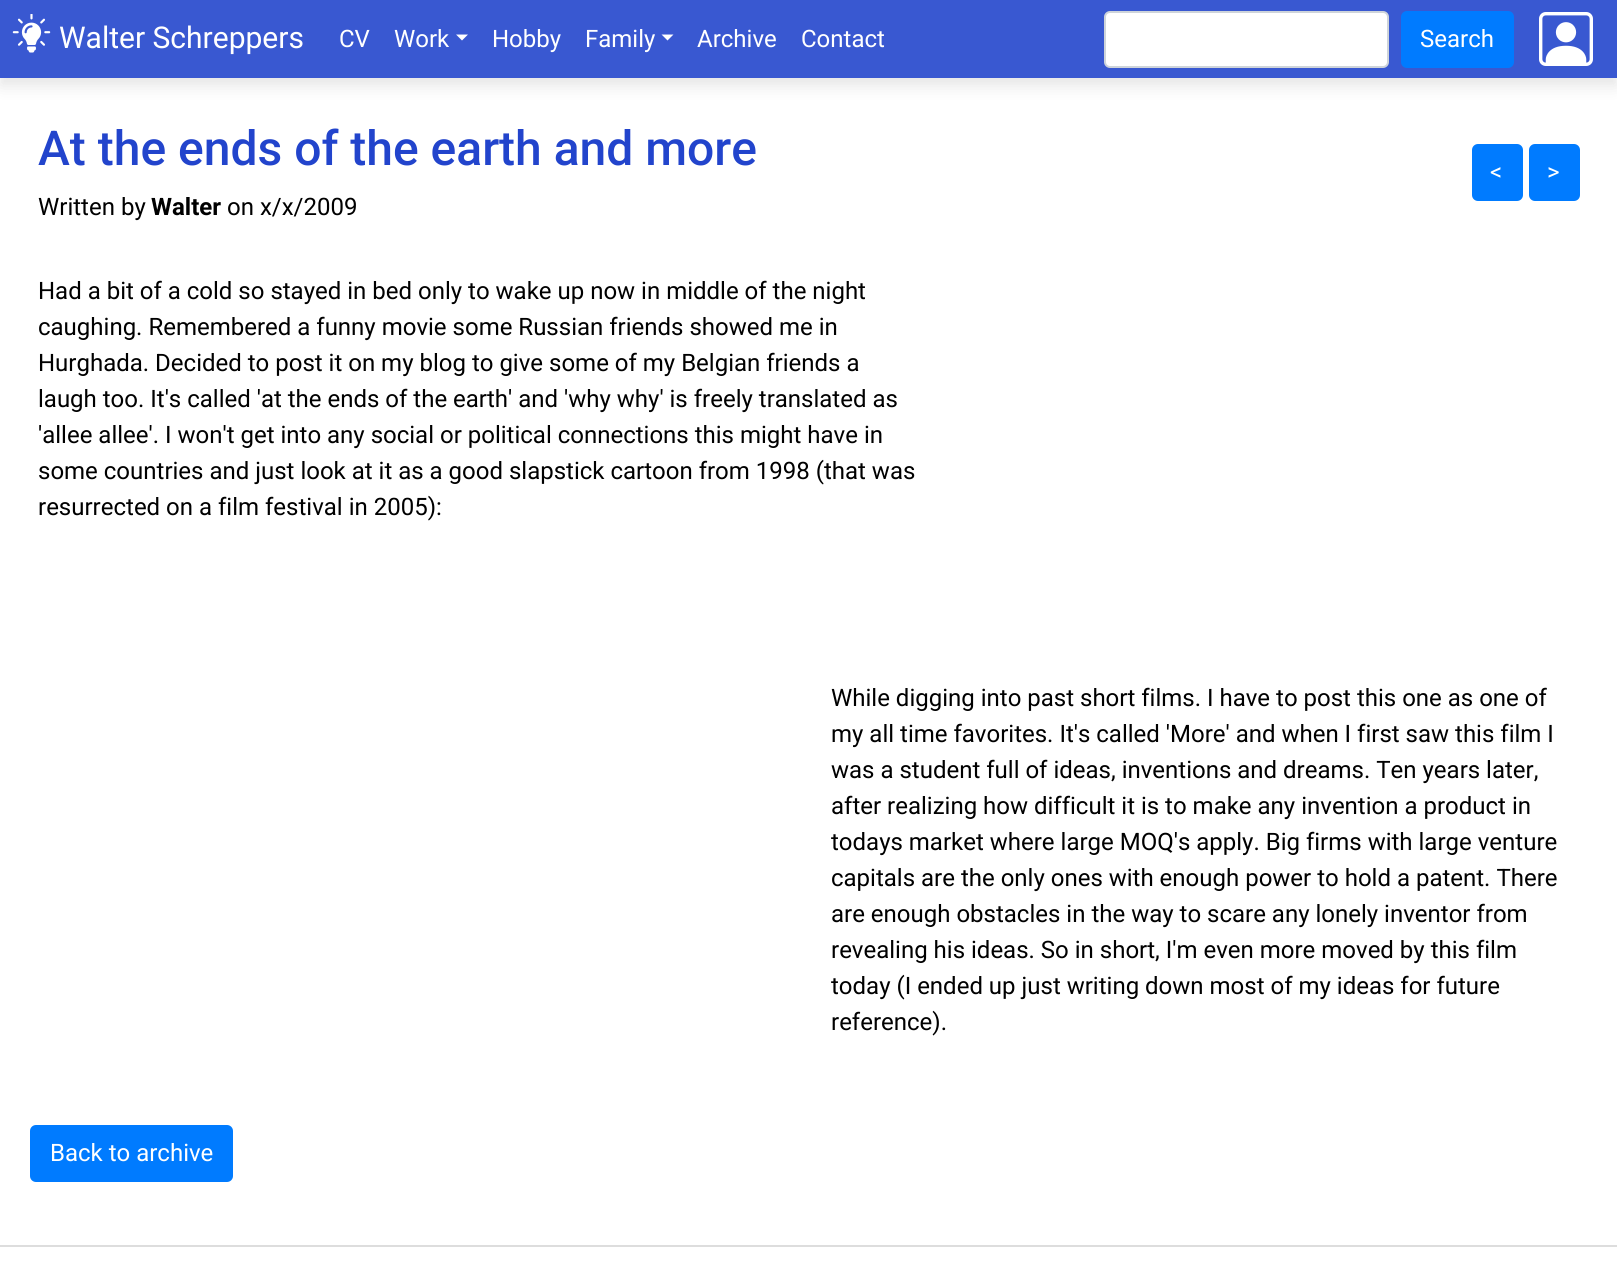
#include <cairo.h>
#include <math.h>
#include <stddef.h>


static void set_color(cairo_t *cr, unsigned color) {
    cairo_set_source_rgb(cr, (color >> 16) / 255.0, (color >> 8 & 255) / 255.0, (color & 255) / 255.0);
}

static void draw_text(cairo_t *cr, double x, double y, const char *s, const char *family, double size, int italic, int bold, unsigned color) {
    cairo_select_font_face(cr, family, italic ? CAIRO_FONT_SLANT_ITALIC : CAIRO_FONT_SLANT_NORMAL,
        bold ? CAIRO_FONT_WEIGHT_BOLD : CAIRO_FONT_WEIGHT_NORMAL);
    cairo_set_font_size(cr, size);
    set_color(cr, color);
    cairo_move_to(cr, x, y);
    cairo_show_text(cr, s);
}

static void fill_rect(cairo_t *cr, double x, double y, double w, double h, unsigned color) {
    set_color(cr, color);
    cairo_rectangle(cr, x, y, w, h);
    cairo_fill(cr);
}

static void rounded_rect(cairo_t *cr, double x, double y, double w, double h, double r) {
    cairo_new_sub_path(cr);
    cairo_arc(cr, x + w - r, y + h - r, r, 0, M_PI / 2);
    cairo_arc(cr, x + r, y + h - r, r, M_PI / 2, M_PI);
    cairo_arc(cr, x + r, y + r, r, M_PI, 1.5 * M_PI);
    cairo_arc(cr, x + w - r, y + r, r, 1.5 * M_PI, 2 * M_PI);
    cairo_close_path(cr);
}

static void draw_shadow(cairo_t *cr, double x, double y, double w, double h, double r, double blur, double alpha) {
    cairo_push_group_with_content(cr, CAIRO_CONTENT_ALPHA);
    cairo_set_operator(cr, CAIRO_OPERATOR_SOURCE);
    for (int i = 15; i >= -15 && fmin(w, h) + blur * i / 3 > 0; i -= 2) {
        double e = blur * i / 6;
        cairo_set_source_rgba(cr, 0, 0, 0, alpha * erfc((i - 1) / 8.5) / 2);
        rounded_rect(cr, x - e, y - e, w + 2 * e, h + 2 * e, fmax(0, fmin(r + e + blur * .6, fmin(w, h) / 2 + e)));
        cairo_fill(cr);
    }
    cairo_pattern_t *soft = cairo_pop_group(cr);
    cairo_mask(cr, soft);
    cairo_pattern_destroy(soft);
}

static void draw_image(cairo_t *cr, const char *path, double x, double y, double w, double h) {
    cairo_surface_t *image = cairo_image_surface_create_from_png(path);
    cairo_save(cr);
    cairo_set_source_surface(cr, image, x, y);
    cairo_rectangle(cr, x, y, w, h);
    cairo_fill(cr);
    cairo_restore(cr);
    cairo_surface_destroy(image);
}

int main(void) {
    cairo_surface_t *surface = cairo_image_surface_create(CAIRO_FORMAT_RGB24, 1617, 1267);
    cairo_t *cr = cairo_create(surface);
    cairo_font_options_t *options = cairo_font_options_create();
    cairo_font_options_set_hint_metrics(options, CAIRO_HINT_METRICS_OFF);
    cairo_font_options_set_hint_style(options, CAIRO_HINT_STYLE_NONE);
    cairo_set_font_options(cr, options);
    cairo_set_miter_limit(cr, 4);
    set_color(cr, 0xFFFFFF);
    cairo_paint(cr);
    set_color(cr, 0x000000);
    draw_shadow(cr, 0, 8, 1617, 78, 0, 7.5, 0.1);
    fill_rect(cr, 0, 0, 1617, 78, 0x3958D1);
    draw_image(cr, "assets/img1.png", 12, 14, 39, 39);
    draw_text(cr, 59, 48, "Walter Schreppers", "Roboto", 30, 0, 0, 0xFFFFFF);
    draw_text(cr, 339, 47, "CV", "Roboto", 24, 0, 0, 0xFFFFFF);
    draw_text(cr, 394, 47, "Work", "Roboto", 24, 0, 0, 0xFFFFFF);
    cairo_new_path(cr);
    cairo_move_to(cr, 456, 34.5);
    cairo_line_to(cr, 468, 34.5);
    cairo_line_to(cr, 462, 40.5);
    cairo_close_path(cr);
    cairo_fill(cr);
    draw_text(cr, 492, 47, "Hobby", "Roboto", 24, 0, 0, 0xFFFFFF);
    draw_text(cr, 585, 47, "Family", "Roboto", 24, 0, 0, 0xFFFFFF);
    cairo_new_path(cr);
    cairo_move_to(cr, 661.5, 34.5);
    cairo_line_to(cr, 673.5, 34.5);
    cairo_line_to(cr, 667.5, 40.5);
    cairo_close_path(cr);
    cairo_fill(cr);
    draw_text(cr, 697, 47, "Archive", "Roboto", 24, 0, 0, 0xFFFFFF);
    draw_text(cr, 801, 47, "Contact", "Roboto", 24, 0, 0, 0xFFFFFF);
    rounded_rect(cr, 1105, 12, 283, 55, 5);
    cairo_fill_preserve(cr);
    set_color(cr, 0xCED4DA);
    cairo_stroke(cr);
    set_color(cr, 0x007BFF);
    rounded_rect(cr, 1402, 12, 111, 55, 5);
    cairo_fill_preserve(cr);
    cairo_stroke(cr);
    draw_text(cr, 1420, 47, "Search", "Roboto", 24, 0, 0, 0xFFFFFF);
    draw_image(cr, "assets/img2.png", 1539, 12, 54, 54);
    draw_text(cr, 38, 165, "At the ends of the earth and more", "Roboto Medium", 48, 0, 0, 0x2244CC);
    draw_text(cr, 38, 215, "Written by", "Roboto", 24, 0, 0, 0x000000);
    draw_text(cr, 151, 215, "Walter", "Roboto", 24, 0, 1, 0x000000);
    draw_text(cr, 227, 215, "on x/x/2009", "Roboto", 24, 0, 0, 0x000000);
    set_color(cr, 0x007BFF);
    rounded_rect(cr, 1473, 145, 49, 55, 5);
    cairo_fill_preserve(cr);
    cairo_stroke(cr);
    draw_text(cr, 1490, 180, "<", "Roboto", 24, 0, 0, 0xFFFFFF);
    set_color(cr, 0x007BFF);
    rounded_rect(cr, 1530, 145, 49, 55, 5);
    cairo_fill_preserve(cr);
    cairo_stroke(cr);
    draw_text(cr, 1547, 180, ">", "Roboto", 24, 0, 0, 0xFFFFFF);
    draw_text(cr, 38, 299, "Had a bit of a cold so stayed in bed only to wake up now in middle of the night", "Roboto", 24, 0, 0, 0x000000);
    draw_text(cr, 38, 335, "caughing. Remembered a funny movie some Russian friends showed me in", "Roboto", 24, 0, 0, 0x000000);
    draw_text(cr, 38, 371, "Hurghada. Decided to post it on my blog to give some of my Belgian friends a", "Roboto", 24, 0, 0, 0x000000);
    draw_text(cr, 38, 407, "laugh too. It's called 'at the ends of the earth' and 'why why' is freely translated as", "Roboto", 24, 0, 0, 0x000000);
    draw_text(cr, 38, 443, "'allee allee'. I won't get into any social or political connections this might have in", "Roboto", 24, 0, 0, 0x000000);
    draw_text(cr, 38, 479, "some countries and just look at it as a good slapstick cartoon from 1998 (that was", "Roboto", 24, 0, 0, 0x000000);
    draw_text(cr, 38, 515, "resurrected on a film festival in 2005):", "Roboto", 24, 0, 0, 0x000000);
    draw_text(cr, 831, 706, "While digging into past short films. I have to post this one as one of", "Roboto", 24, 0, 0, 0x000000);
    draw_text(cr, 831, 742, "my all time favorites. It's called 'More' and when I first saw this film I", "Roboto", 24, 0, 0, 0x000000);
    draw_text(cr, 831, 778, "was a student full of ideas, inventions and dreams. Ten years later,", "Roboto", 24, 0, 0, 0x000000);
    draw_text(cr, 831, 814, "after realizing how difficult it is to make any invention a product in", "Roboto", 24, 0, 0, 0x000000);
    draw_text(cr, 831, 850, "todays market where large MOQ's apply. Big firms with large venture", "Roboto", 24, 0, 0, 0x000000);
    draw_text(cr, 831, 886, "capitals are the only ones with enough power to hold a patent. There", "Roboto", 24, 0, 0, 0x000000);
    draw_text(cr, 831, 922, "are enough obstacles in the way to scare any lonely inventor from", "Roboto", 24, 0, 0, 0x000000);
    draw_text(cr, 831, 958, "revealing his ideas. So in short, I'm even more moved by this film", "Roboto", 24, 0, 0, 0x000000);
    draw_text(cr, 831, 994, "today (I ended up just writing down most of my ideas for future", "Roboto", 24, 0, 0, 0x000000);
    draw_text(cr, 831, 1030, "reference).", "Roboto", 24, 0, 0, 0x000000);
    set_color(cr, 0x007BFF);
    rounded_rect(cr, 31, 1126, 201, 55, 5);
    cairo_fill_preserve(cr);
    cairo_stroke(cr);
    draw_text(cr, 50, 1161, "Back to archive", "Roboto", 24, 0, 0, 0xFFFFFF);
    fill_rect(cr, 0, 1245, 1617, 2, 0xDDDDDD);
    cairo_surface_write_to_png(surface, "output.png");
    cairo_font_options_destroy(options);
    cairo_destroy(cr);
    cairo_surface_destroy(surface);
    return 0;
}
